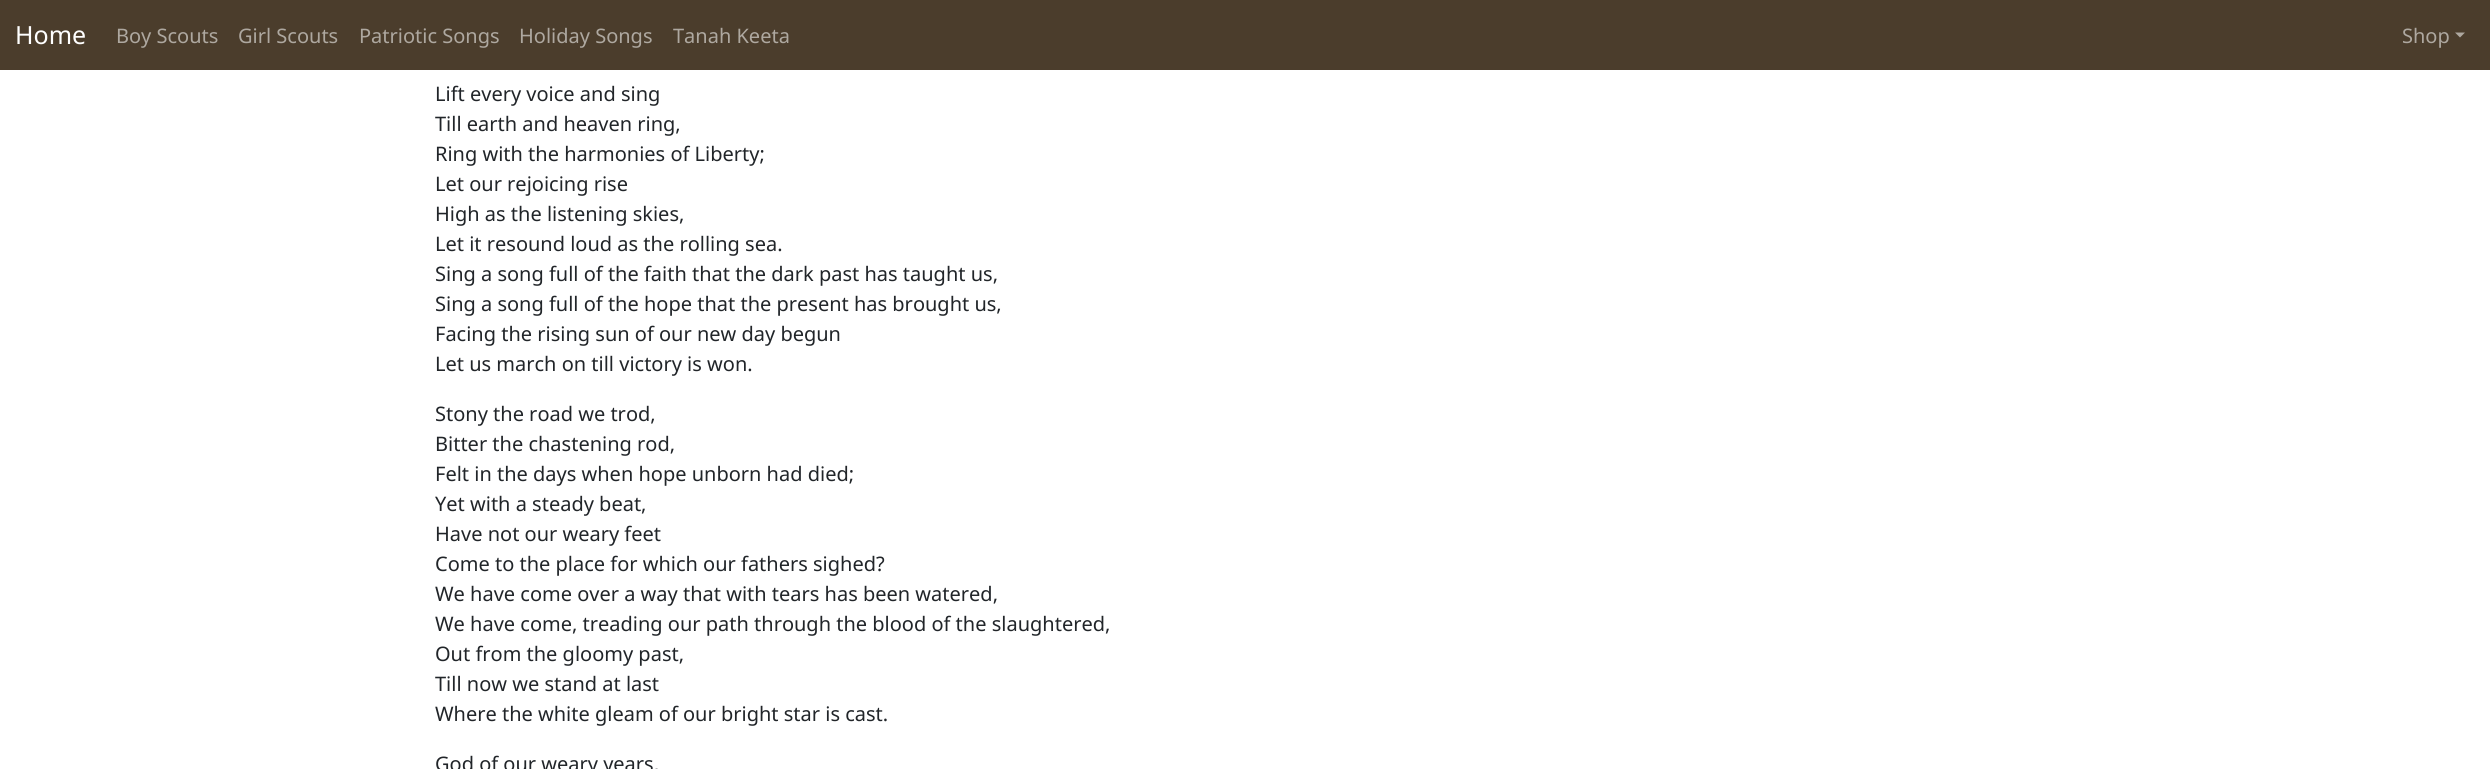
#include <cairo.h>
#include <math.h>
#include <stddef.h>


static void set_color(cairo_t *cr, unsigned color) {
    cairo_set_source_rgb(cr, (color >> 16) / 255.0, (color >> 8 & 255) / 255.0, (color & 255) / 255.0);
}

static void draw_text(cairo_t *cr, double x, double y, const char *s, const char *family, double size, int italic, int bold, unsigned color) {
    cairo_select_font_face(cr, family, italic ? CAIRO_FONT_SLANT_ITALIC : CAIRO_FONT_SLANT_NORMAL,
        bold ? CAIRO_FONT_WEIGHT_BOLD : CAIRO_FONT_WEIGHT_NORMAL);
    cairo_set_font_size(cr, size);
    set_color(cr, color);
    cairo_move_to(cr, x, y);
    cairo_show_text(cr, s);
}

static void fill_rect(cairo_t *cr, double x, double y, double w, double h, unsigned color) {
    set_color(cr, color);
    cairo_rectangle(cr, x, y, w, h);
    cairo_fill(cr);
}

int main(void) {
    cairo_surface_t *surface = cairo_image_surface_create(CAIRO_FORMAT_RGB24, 2490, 769);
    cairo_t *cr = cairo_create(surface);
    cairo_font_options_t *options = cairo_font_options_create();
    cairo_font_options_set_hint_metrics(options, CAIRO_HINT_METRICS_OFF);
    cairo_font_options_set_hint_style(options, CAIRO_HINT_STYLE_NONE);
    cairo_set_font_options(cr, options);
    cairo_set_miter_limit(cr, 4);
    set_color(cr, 0xFFFFFF);
    cairo_paint(cr);
    fill_rect(cr, 0, 0, 2490, 70, 0x4B3D2C);
    draw_text(cr, 15, 44, "Home", "Noto Sans", 25, 0, 0, 0xFFFFFF);
    draw_text(cr, 116, 43, "Boy Scouts", "Noto Sans", 20, 0, 0, 0xAEA8A0);
    draw_text(cr, 238, 43, "Girl Scouts", "Noto Sans", 20, 0, 0, 0xAEA8A0);
    draw_text(cr, 359, 43, "Patriotic Songs", "Noto Sans", 20, 0, 0, 0xAEA8A0);
    draw_text(cr, 519, 43, "Holiday Songs", "Noto Sans", 20, 0, 0, 0xAEA8A0);
    draw_text(cr, 673, 43, "Tanah Keeta", "Noto Sans", 20, 0, 0, 0xAEA8A0);
    draw_text(cr, 2402, 43, "Shop", "Noto Sans", 20, 0, 0, 0xAEA8A0);
    cairo_new_path(cr);
    cairo_move_to(cr, 2455, 32.5);
    cairo_line_to(cr, 2465, 32.5);
    cairo_line_to(cr, 2460, 37.5);
    cairo_close_path(cr);
    cairo_fill(cr);
    draw_text(cr, 435, 101, "Lift every voice and sing", "Noto Sans", 20, 0, 0, 0x212529);
    draw_text(cr, 435, 131, "Till earth and heaven ring,", "Noto Sans", 20, 0, 0, 0x212529);
    draw_text(cr, 435, 161, "Ring with the harmonies of Liberty;", "Noto Sans", 20, 0, 0, 0x212529);
    draw_text(cr, 435, 191, "Let our rejoicing rise", "Noto Sans", 20, 0, 0, 0x212529);
    draw_text(cr, 435, 221, "High as the listening skies,", "Noto Sans", 20, 0, 0, 0x212529);
    draw_text(cr, 435, 251, "Let it resound loud as the rolling sea.", "Noto Sans", 20, 0, 0, 0x212529);
    draw_text(cr, 435, 281, "Sing a song full of the faith that the dark past has taught us,", "Noto Sans", 20, 0, 0, 0x212529);
    draw_text(cr, 435, 311, "Sing a song full of the hope that the present has brought us,", "Noto Sans", 20, 0, 0, 0x212529);
    draw_text(cr, 435, 341, "Facing the rising sun of our new day begun", "Noto Sans", 20, 0, 0, 0x212529);
    draw_text(cr, 435, 371, "Let us march on till victory is won.", "Noto Sans", 20, 0, 0, 0x212529);
    draw_text(cr, 435, 421, "Stony the road we trod,", "Noto Sans", 20, 0, 0, 0x212529);
    draw_text(cr, 435, 451, "Bitter the chastening rod,", "Noto Sans", 20, 0, 0, 0x212529);
    draw_text(cr, 435, 481, "Felt in the days when hope unborn had died;", "Noto Sans", 20, 0, 0, 0x212529);
    draw_text(cr, 435, 511, "Yet with a steady beat,", "Noto Sans", 20, 0, 0, 0x212529);
    draw_text(cr, 435, 541, "Have not our weary feet", "Noto Sans", 20, 0, 0, 0x212529);
    draw_text(cr, 435, 571, "Come to the place for which our fathers sighed?", "Noto Sans", 20, 0, 0, 0x212529);
    draw_text(cr, 435, 601, "We have come over a way that with tears has been watered,", "Noto Sans", 20, 0, 0, 0x212529);
    draw_text(cr, 435, 631, "We have come, treading our path through the blood of the slaughtered,", "Noto Sans", 20, 0, 0, 0x212529);
    draw_text(cr, 435, 661, "Out from the gloomy past,", "Noto Sans", 20, 0, 0, 0x212529);
    draw_text(cr, 435, 691, "Till now we stand at last", "Noto Sans", 20, 0, 0, 0x212529);
    draw_text(cr, 435, 721, "Where the white gleam of our bright star is cast.", "Noto Sans", 20, 0, 0, 0x212529);
    draw_text(cr, 435, 771, "God of our weary years,", "Noto Sans", 20, 0, 0, 0x212529);
    cairo_surface_write_to_png(surface, "output.png");
    cairo_font_options_destroy(options);
    cairo_destroy(cr);
    cairo_surface_destroy(surface);
    return 0;
}
